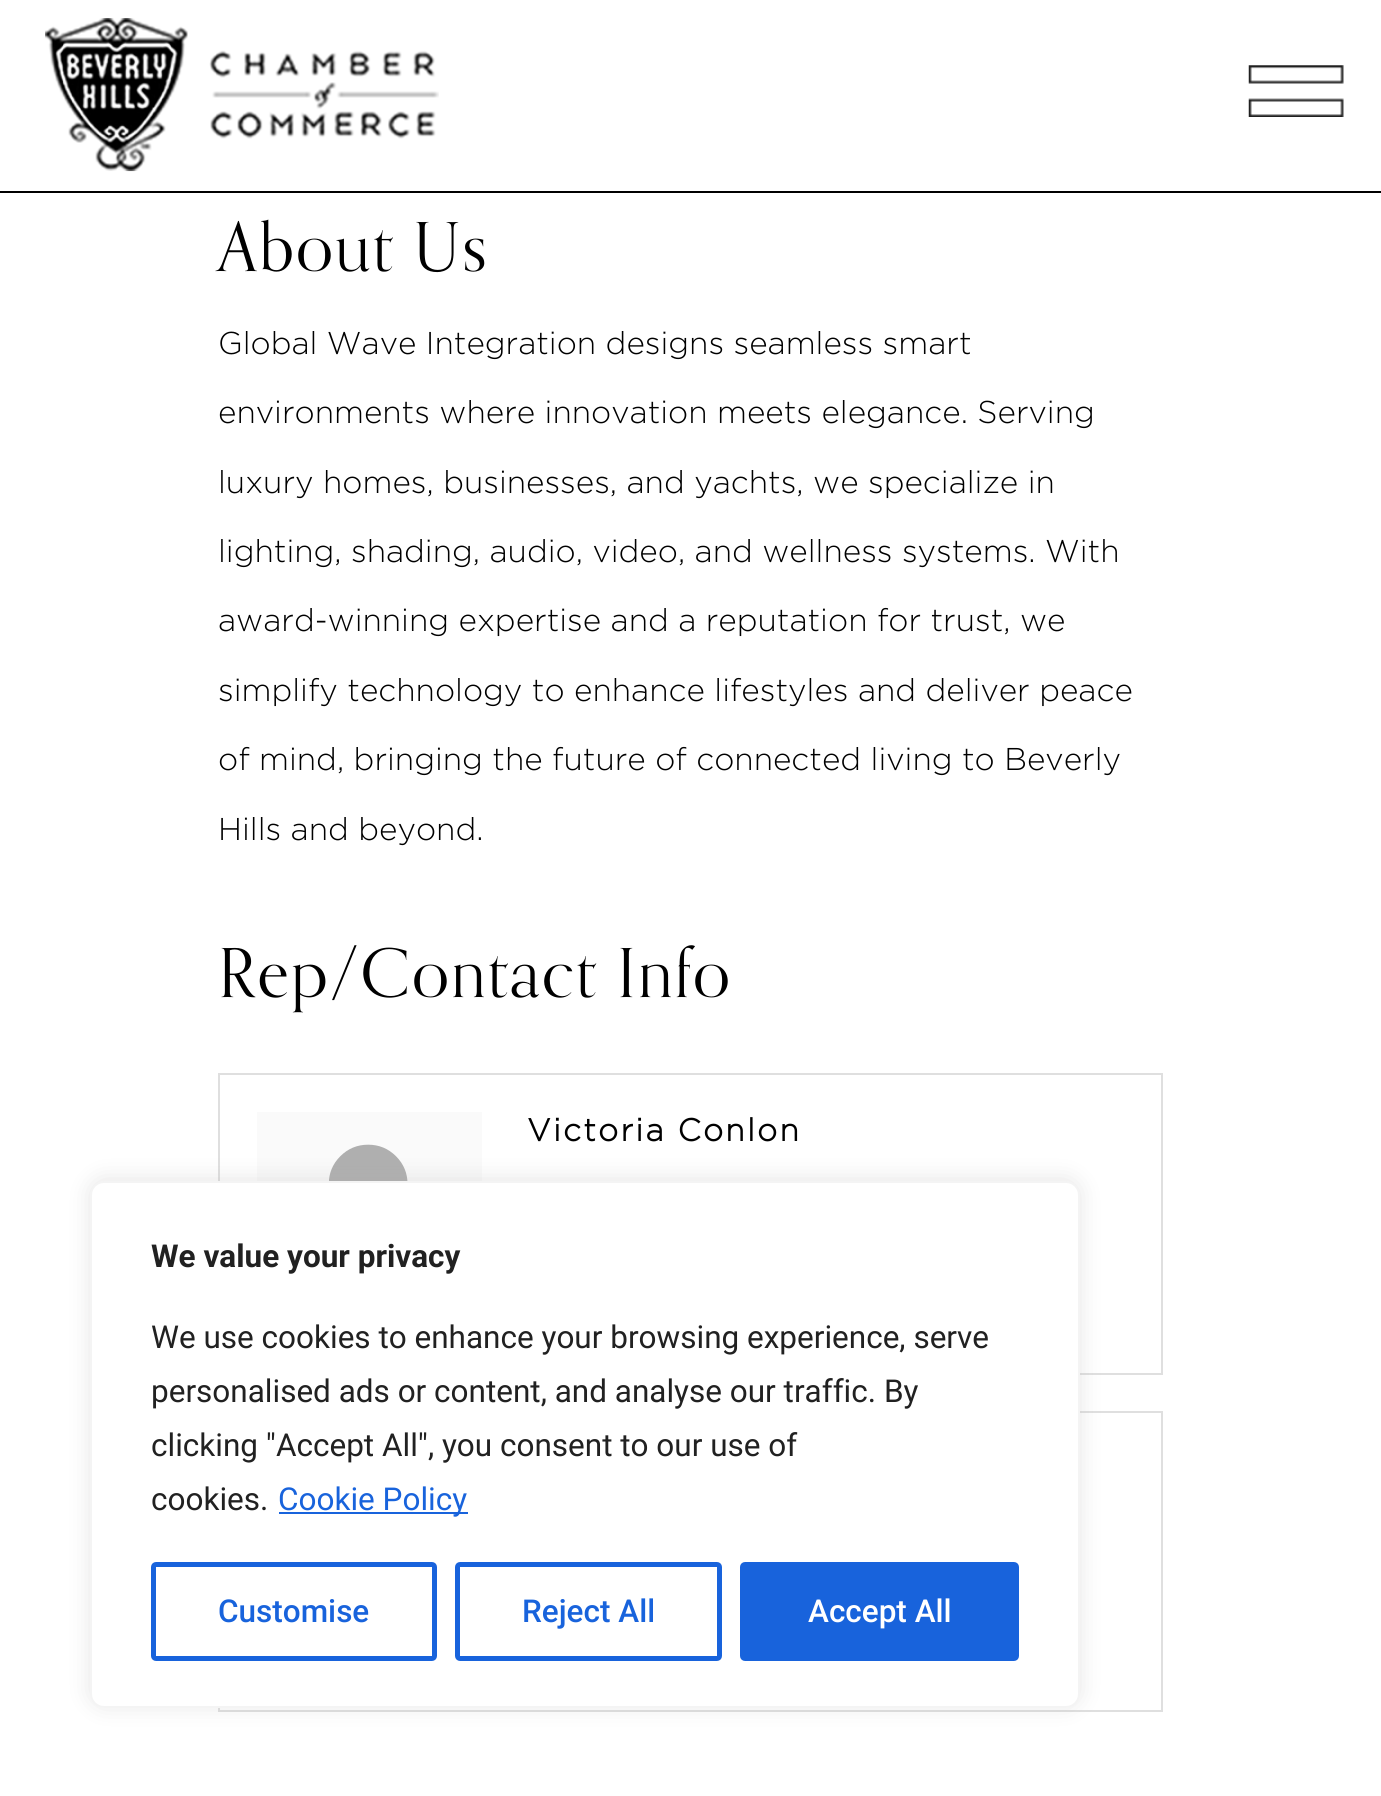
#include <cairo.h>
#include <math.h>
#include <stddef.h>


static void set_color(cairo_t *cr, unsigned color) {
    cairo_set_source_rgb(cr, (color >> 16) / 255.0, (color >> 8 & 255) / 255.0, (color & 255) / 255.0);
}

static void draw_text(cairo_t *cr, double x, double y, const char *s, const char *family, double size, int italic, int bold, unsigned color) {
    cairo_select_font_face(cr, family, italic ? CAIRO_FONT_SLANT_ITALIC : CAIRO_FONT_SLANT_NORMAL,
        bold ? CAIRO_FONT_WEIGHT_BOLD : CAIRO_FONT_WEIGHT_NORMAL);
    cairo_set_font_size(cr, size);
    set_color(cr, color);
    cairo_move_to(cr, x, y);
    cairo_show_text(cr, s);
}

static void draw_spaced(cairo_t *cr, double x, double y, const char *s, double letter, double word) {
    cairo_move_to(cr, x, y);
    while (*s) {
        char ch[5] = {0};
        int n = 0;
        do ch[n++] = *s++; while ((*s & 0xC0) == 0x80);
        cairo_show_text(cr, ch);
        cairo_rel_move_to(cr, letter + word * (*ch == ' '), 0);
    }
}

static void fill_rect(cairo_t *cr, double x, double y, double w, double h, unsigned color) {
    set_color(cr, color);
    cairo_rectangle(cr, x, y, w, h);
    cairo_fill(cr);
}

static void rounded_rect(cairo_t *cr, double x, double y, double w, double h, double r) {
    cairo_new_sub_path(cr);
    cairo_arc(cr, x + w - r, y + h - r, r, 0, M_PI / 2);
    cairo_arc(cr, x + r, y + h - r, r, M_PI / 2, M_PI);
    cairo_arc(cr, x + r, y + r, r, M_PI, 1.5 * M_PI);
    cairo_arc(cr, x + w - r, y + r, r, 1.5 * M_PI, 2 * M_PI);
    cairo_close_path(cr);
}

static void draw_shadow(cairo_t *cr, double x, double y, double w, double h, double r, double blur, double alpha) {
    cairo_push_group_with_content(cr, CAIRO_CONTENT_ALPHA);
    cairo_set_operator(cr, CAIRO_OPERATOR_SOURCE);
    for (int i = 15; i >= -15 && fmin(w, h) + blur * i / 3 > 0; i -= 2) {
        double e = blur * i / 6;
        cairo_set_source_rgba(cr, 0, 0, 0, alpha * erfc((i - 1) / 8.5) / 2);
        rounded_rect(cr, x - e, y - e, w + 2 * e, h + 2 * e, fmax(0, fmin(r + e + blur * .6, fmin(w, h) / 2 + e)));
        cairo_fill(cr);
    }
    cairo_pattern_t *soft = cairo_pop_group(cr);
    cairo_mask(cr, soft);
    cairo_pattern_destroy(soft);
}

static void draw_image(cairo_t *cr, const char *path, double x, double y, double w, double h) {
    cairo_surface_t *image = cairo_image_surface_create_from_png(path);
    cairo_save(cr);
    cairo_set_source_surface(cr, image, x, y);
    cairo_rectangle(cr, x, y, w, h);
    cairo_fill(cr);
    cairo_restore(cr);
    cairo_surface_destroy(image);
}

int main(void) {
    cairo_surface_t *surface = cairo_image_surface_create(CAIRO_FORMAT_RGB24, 1381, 1796);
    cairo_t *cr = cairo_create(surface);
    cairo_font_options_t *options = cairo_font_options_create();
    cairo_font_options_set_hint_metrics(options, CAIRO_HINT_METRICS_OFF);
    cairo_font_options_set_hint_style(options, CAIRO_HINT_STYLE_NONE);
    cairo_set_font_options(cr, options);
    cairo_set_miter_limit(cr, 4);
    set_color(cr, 0xFFFFFF);
    cairo_paint(cr);
    fill_rect(cr, 0, 191, 1381, 2, 0x000000);
    draw_image(cr, "assets/img1.png", 45, 18, 394, 154);
    draw_image(cr, "assets/img2.png", 1248, 65, 96, 52);
    cairo_select_font_face(cr, "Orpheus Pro", CAIRO_FONT_SLANT_NORMAL, CAIRO_FONT_WEIGHT_NORMAL);
    cairo_set_font_size(cr, 67.5);
    draw_spaced(cr, 218, 271, "About Us", 2.25, 0);
    draw_text(cr, 218, 354, "Global Wave Integration designs seamless smart", "Gotham Light", 31.5, 0, 0, 0x000000);
    draw_text(cr, 218, 423, "environments where innovation meets elegance. Serving", "Gotham Light", 31.5, 0, 0, 0x000000);
    draw_text(cr, 218, 493, "luxury homes, businesses, and yachts, we specialize in", "Gotham Light", 31.5, 0, 0, 0x000000);
    draw_text(cr, 218, 562, "lighting, shading, audio, video, and wellness systems. With", "Gotham Light", 31.5, 0, 0, 0x000000);
    draw_text(cr, 218, 631, "award-winning expertise and a reputation for trust, we", "Gotham Light", 31.5, 0, 0, 0x000000);
    draw_text(cr, 218, 701, "simplify technology to enhance lifestyles and deliver peace", "Gotham Light", 31.5, 0, 0, 0x000000);
    draw_text(cr, 218, 770, "of mind, bringing the future of connected living to Beverly", "Gotham Light", 31.5, 0, 0, 0x000000);
    draw_text(cr, 218, 840, "Hills and beyond.", "Gotham Light", 31.5, 0, 0, 0x000000);
    cairo_select_font_face(cr, "Orpheus Pro", CAIRO_FONT_SLANT_NORMAL, CAIRO_FONT_WEIGHT_NORMAL);
    cairo_set_font_size(cr, 67.5);
    draw_spaced(cr, 218, 997, "Rep/Contact Info", 2.25, 0);
    cairo_rectangle(cr, 219, 1074, 943, 300);
    set_color(cr, 0xDFDFDF);
    cairo_stroke(cr);
    fill_rect(cr, 257, 1112, 225, 69, 0xFAFAFA);
    draw_image(cr, "assets/img3.png", 329, 1144, 79, 37);
    cairo_select_font_face(cr, "Gotham", CAIRO_FONT_SLANT_NORMAL, CAIRO_FONT_WEIGHT_BOLD);
    cairo_set_font_size(cr, 31.5);
    set_color(cr, 0x000000);
    draw_spaced(cr, 527, 1141, "Victoria Conlon", 2.25, 0);
    cairo_rectangle(cr, 219, 1412, 943, 299);
    set_color(cr, 0xDFDFDF);
    cairo_stroke(cr);
    set_color(cr, 0xACABAB);
    draw_shadow(cr, 90, 1179, 990, 527, 14, 11, 0.3);
    set_color(cr, 0xFFFFFF);
    rounded_rect(cr, 91, 1182, 988, 525, 13);
    cairo_fill_preserve(cr);
    set_color(cr, 0xF4F4F4);
    cairo_stroke(cr);
    draw_text(cr, 151, 1267, "We value your privacy", "Roboto", 31.5, 0, 1, 0x212121);
    draw_text(cr, 151, 1348, "We use cookies to enhance your browsing experience, serve", "Roboto", 31.5, 0, 0, 0x212121);
    draw_text(cr, 151, 1402, "personalised ads or content, and analyse our traffic. By", "Roboto", 31.5, 0, 0, 0x212121);
    draw_text(cr, 151, 1456, "clicking \"Accept All\", you consent to our use of", "Roboto", 31.5, 0, 0, 0x212121);
    draw_text(cr, 151, 1510, "cookies.", "Roboto", 31.5, 0, 0, 0x212121);
    fill_rect(cr, 279, 1512, 189, 2, 0x1863DC);
    draw_text(cr, 278, 1510, "Cookie Policy", "Roboto", 31.5, 0, 0, 0x1863DC);
    rounded_rect(cr, 153.5, 1564.5, 281, 94, 2.5);
    cairo_set_line_width(cr, 5);
    cairo_stroke(cr);
    draw_text(cr, 218, 1622, "Customise", "Roboto Medium", 31.5, 0, 0, 0x1863DC);
    rounded_rect(cr, 457.5, 1564.5, 262, 94, 2.5);
    cairo_stroke(cr);
    draw_text(cr, 522, 1622, "Reject All", "Roboto Medium", 31.5, 0, 0, 0x1863DC);
    rounded_rect(cr, 742.5, 1564.5, 274, 94, 2.5);
    cairo_fill_preserve(cr);
    cairo_stroke(cr);
    draw_text(cr, 808, 1622, "Accept All", "Roboto Medium", 31.5, 0, 0, 0xFFFFFF);
    cairo_surface_write_to_png(surface, "output.png");
    cairo_font_options_destroy(options);
    cairo_destroy(cr);
    cairo_surface_destroy(surface);
    return 0;
}
